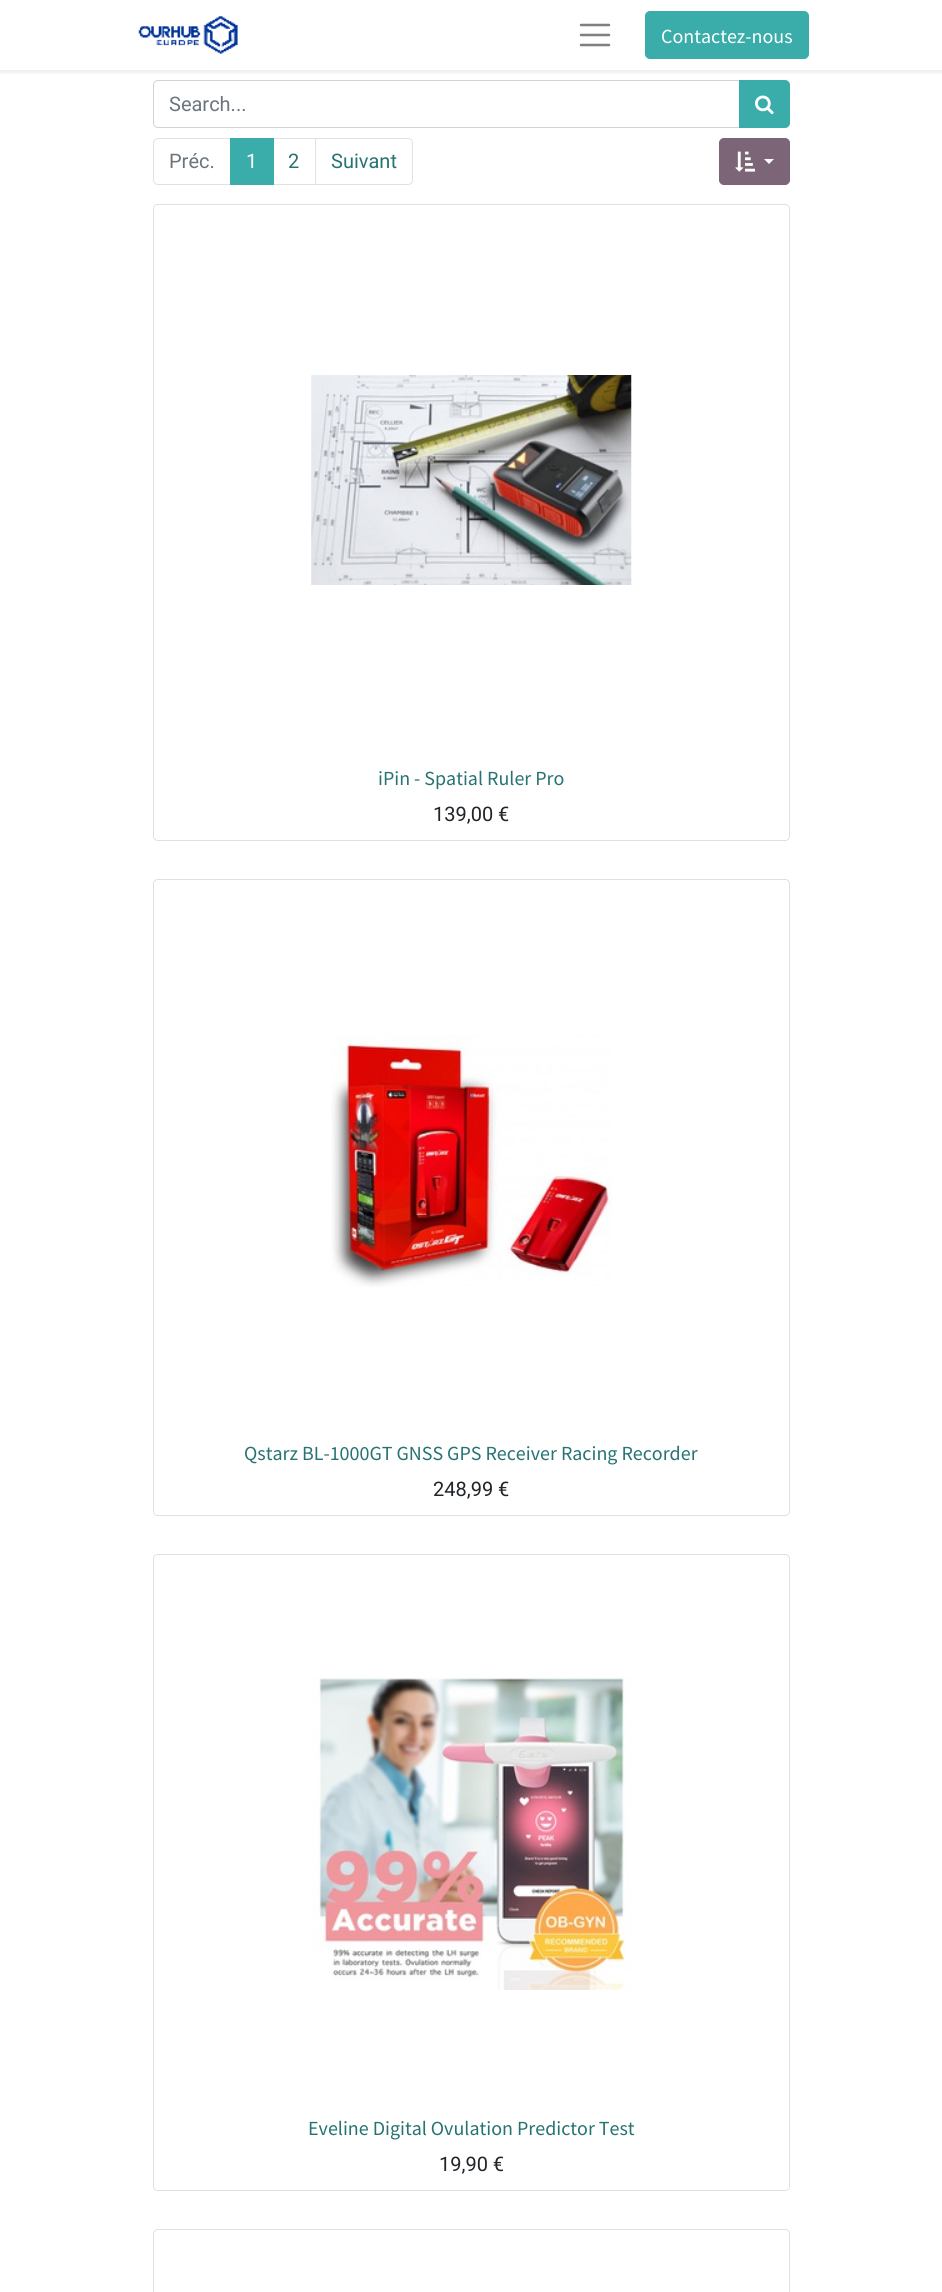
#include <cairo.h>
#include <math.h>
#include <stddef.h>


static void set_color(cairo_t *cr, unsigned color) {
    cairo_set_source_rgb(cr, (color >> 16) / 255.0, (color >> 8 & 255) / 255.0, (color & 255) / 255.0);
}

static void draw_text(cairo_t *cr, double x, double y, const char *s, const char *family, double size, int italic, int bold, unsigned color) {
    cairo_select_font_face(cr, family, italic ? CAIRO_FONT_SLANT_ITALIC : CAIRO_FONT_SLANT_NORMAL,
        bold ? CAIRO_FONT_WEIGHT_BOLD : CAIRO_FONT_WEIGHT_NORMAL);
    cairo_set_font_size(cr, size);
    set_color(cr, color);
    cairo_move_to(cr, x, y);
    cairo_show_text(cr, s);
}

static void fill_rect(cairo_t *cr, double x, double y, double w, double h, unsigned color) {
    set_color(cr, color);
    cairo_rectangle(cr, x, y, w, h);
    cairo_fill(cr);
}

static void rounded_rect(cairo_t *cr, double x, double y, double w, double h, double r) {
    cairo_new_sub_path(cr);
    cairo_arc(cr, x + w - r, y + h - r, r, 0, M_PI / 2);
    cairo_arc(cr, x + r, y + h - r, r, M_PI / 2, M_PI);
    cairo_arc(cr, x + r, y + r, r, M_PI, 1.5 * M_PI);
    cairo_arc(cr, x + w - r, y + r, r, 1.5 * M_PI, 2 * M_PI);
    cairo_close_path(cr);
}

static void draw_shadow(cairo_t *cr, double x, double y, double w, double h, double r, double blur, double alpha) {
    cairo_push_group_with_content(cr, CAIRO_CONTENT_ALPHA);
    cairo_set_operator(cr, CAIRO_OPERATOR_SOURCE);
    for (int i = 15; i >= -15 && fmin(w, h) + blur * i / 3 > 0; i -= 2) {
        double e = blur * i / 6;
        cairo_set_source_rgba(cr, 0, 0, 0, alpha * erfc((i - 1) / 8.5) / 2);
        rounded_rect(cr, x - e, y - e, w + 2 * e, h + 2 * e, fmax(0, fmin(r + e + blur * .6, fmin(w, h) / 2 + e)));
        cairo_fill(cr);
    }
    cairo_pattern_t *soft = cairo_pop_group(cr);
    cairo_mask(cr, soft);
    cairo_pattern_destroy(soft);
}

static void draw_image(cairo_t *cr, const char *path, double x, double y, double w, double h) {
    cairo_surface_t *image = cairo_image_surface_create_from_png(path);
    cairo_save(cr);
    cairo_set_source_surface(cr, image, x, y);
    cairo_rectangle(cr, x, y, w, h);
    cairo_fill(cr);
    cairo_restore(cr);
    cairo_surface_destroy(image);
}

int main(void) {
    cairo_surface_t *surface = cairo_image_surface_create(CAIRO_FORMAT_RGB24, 942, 2292);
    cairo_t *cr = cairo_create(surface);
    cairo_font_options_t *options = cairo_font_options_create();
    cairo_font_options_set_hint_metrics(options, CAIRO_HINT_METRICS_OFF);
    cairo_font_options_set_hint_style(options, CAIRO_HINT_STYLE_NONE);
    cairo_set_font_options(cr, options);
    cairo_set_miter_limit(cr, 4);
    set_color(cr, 0xFFFFFF);
    cairo_paint(cr);
    cairo_new_path(cr);
    cairo_move_to(cr, 158, 80.5);
    cairo_line_to(cr, 739.5, 80.5);
    cairo_line_to(cr, 739.5, 127.5);
    cairo_line_to(cr, 158, 127.5);
    cairo_curve_to(cr, 155.5, 127.5, 153.5, 125.5, 153.5, 123);
    cairo_line_to(cr, 153.5, 85);
    cairo_curve_to(cr, 153.5, 82.5, 155.5, 80.5, 158, 80.5);
    cairo_close_path(cr);
    set_color(cr, 0xCED4DA);
    cairo_set_line_width(cr, 1);
    cairo_stroke(cr);
    set_color(cr, 0x3AADAA);
    cairo_new_path(cr);
    cairo_move_to(cr, 739.5, 80.5);
    cairo_line_to(cr, 785, 80.5);
    cairo_curve_to(cr, 787.5, 80.5, 789.5, 82.5, 789.5, 85);
    cairo_line_to(cr, 789.5, 123);
    cairo_curve_to(cr, 789.5, 125.5, 787.5, 127.5, 785, 127.5);
    cairo_line_to(cr, 739.5, 127.5);
    cairo_close_path(cr);
    cairo_fill_preserve(cr);
    cairo_stroke(cr);
    cairo_save(cr);
    cairo_rectangle(cr, 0, 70, 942, 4);
    cairo_clip(cr);
    set_color(cr, 0x000000);
    draw_shadow(cr, 0, 3, 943, 70, 0, 2.5, 0.07);
    cairo_restore(cr);
    draw_image(cr, "assets/img1.png", 138, 16, 100, 38);
    cairo_new_path(cr);
    cairo_move_to(cr, 581, 25);
    cairo_line_to(cr, 609, 25);
    cairo_move_to(cr, 581, 35);
    cairo_line_to(cr, 609, 35);
    cairo_move_to(cr, 581, 45);
    cairo_line_to(cr, 609, 45);
    set_color(cr, 0x808080);
    cairo_set_line_width(cr, 2.5);
    cairo_set_line_cap(cr, CAIRO_LINE_CAP_ROUND);
    cairo_stroke(cr);
    set_color(cr, 0x3AADAA);
    rounded_rect(cr, 645.5, 11.5, 163, 47, 4.5);
    cairo_fill_preserve(cr);
    cairo_set_line_width(cr, 1);
    cairo_set_line_cap(cr, CAIRO_LINE_CAP_BUTT);
    cairo_stroke(cr);
    draw_text(cr, 661, 43, "Contactez-nous", "Source Sans Pro", 20, 0, 0, 0xFFFFFF);
    draw_text(cr, 169, 111, "Search...", "Roboto", 20, 0, 0, 0x6C757D);
    draw_image(cr, "assets/img2.png", 755, 95, 19, 20);
    cairo_new_path(cr);
    cairo_move_to(cr, 158, 138.5);
    cairo_line_to(cr, 230.5, 138.5);
    cairo_line_to(cr, 230.5, 184.5);
    cairo_line_to(cr, 158, 184.5);
    cairo_curve_to(cr, 155.5, 184.5, 153.5, 182.5, 153.5, 180);
    cairo_line_to(cr, 153.5, 143);
    cairo_curve_to(cr, 153.5, 140.5, 155.5, 138.5, 158, 138.5);
    cairo_close_path(cr);
    set_color(cr, 0xDEE2E6);
    cairo_stroke(cr);
    draw_text(cr, 169, 168, "Préc.", "Roboto", 20, 0, 0, 0x6C757D);
    cairo_rectangle(cr, 273.5, 138.5, 42, 46);
    set_color(cr, 0xDEE2E6);
    cairo_stroke(cr);
    fill_rect(cr, 230, 138, 44, 47, 0x3AADAA);
    draw_text(cr, 246, 168, "1", "Roboto", 20, 0, 0, 0xFFFFFF);
    draw_text(cr, 288, 168, "2", "Roboto", 20, 0, 0, 0x267372);
    set_color(cr, 0xFFFFFF);
    cairo_new_path(cr);
    cairo_move_to(cr, 315.5, 138.5);
    cairo_line_to(cr, 408, 138.5);
    cairo_curve_to(cr, 410.5, 138.5, 412.5, 140.5, 412.5, 143);
    cairo_line_to(cr, 412.5, 180);
    cairo_curve_to(cr, 412.5, 182.5, 410.5, 184.5, 408, 184.5);
    cairo_line_to(cr, 315.5, 184.5);
    cairo_close_path(cr);
    cairo_fill_preserve(cr);
    set_color(cr, 0xDEE2E6);
    cairo_stroke(cr);
    draw_text(cr, 331, 168, "Suivant", "Roboto", 20, 0, 0, 0x267372);
    set_color(cr, 0x7C6576);
    rounded_rect(cr, 719.5, 138.5, 70, 46, 4.5);
    cairo_fill_preserve(cr);
    cairo_stroke(cr);
    draw_image(cr, "assets/img3.png", 735, 151, 20, 21);
    set_color(cr, 0xFFFFFF);
    cairo_new_path(cr);
    cairo_move_to(cr, 764, 159);
    cairo_line_to(cr, 774, 159);
    cairo_line_to(cr, 769, 164);
    cairo_close_path(cr);
    cairo_fill(cr);
    rounded_rect(cr, 153.5, 204.5, 636, 636, 4.5);
    set_color(cr, 0xDFDFDF);
    cairo_stroke(cr);
    cairo_set_source_rgba(cr, 1, 1, 1, 0.9);
    cairo_new_path(cr);
    cairo_move_to(cr, 158, 205);
    cairo_line_to(cr, 785, 205);
    cairo_curve_to(cr, 787, 205, 789, 207, 789, 209);
    cairo_line_to(cr, 789, 756);
    cairo_line_to(cr, 154, 756);
    cairo_line_to(cr, 154, 209);
    cairo_curve_to(cr, 154, 207, 156, 205, 158, 205);
    cairo_close_path(cr);
    cairo_fill(cr);
    draw_image(cr, "assets/img4.png", 311, 375, 321, 210);
    cairo_new_path(cr);
    cairo_move_to(cr, 154, 756);
    cairo_line_to(cr, 789, 756);
    cairo_line_to(cr, 789, 836);
    cairo_curve_to(cr, 789, 838, 787, 840, 785, 840);
    cairo_line_to(cr, 158, 840);
    cairo_curve_to(cr, 156, 840, 154, 838, 154, 836);
    cairo_close_path(cr);
    cairo_fill(cr);
    draw_text(cr, 378, 785, "iPin - Spatial Ruler Pro", "Source Sans Pro", 20, 0, 0, 0x267372);
    draw_text(cr, 433, 821, "139,00 €", "Roboto", 20, 0, 0, 0x212529);
    rounded_rect(cr, 153.5, 879.5, 636, 636, 4.5);
    set_color(cr, 0xDFDFDF);
    cairo_stroke(cr);
    cairo_set_source_rgba(cr, 1, 1, 1, 0.9);
    cairo_new_path(cr);
    cairo_move_to(cr, 158, 880);
    cairo_line_to(cr, 785, 880);
    cairo_curve_to(cr, 787, 880, 789, 882, 789, 884);
    cairo_line_to(cr, 789, 1431);
    cairo_line_to(cr, 154, 1431);
    cairo_line_to(cr, 154, 884);
    cairo_curve_to(cr, 154, 882, 156, 880, 158, 880);
    cairo_close_path(cr);
    cairo_fill(cr);
    draw_image(cr, "assets/img5.png", 331, 1035, 281, 252);
    cairo_new_path(cr);
    cairo_move_to(cr, 154, 1431);
    cairo_line_to(cr, 789, 1431);
    cairo_line_to(cr, 789, 1511);
    cairo_curve_to(cr, 789, 1513, 787, 1515, 785, 1515);
    cairo_line_to(cr, 158, 1515);
    cairo_curve_to(cr, 156, 1515, 154, 1513, 154, 1511);
    cairo_close_path(cr);
    cairo_fill(cr);
    draw_text(cr, 244, 1460, "Qstarz BL-1000GT GNSS GPS Receiver Racing Recorder", "Source Sans Pro", 20, 0, 0, 0x267372);
    draw_text(cr, 433, 1496, "248,99 €", "Roboto", 20, 0, 0, 0x212529);
    rounded_rect(cr, 153.5, 1554.5, 636, 636, 4.5);
    set_color(cr, 0xDFDFDF);
    cairo_stroke(cr);
    cairo_set_source_rgba(cr, 1, 1, 1, 0.9);
    cairo_new_path(cr);
    cairo_move_to(cr, 158, 1555);
    cairo_line_to(cr, 785, 1555);
    cairo_curve_to(cr, 787, 1555, 789, 1557, 789, 1559);
    cairo_line_to(cr, 789, 2106);
    cairo_line_to(cr, 154, 2106);
    cairo_line_to(cr, 154, 1559);
    cairo_curve_to(cr, 154, 1557, 156, 1555, 158, 1555);
    cairo_close_path(cr);
    cairo_fill(cr);
    draw_image(cr, "assets/img6.png", 311, 1677, 320, 313);
    cairo_new_path(cr);
    cairo_move_to(cr, 154, 2106);
    cairo_line_to(cr, 789, 2106);
    cairo_line_to(cr, 789, 2186);
    cairo_curve_to(cr, 789, 2188, 787, 2190, 785, 2190);
    cairo_line_to(cr, 158, 2190);
    cairo_curve_to(cr, 156, 2190, 154, 2188, 154, 2186);
    cairo_close_path(cr);
    cairo_fill(cr);
    draw_text(cr, 308, 2135, "Eveline Digital Ovulation Predictor Test", "Source Sans Pro", 20, 0, 0, 0x267372);
    draw_text(cr, 439, 2171, "19,90 €", "Roboto", 20, 0, 0, 0x212529);
    rounded_rect(cr, 153.5, 2229.5, 636, 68, 4.5);
    set_color(cr, 0xDFDFDF);
    cairo_stroke(cr);
    cairo_set_source_rgba(cr, 1, 1, 1, 0.9);
    cairo_new_path(cr);
    cairo_move_to(cr, 158, 2230);
    cairo_line_to(cr, 785, 2230);
    cairo_curve_to(cr, 787, 2230, 789, 2232, 789, 2234);
    cairo_line_to(cr, 789, 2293);
    cairo_line_to(cr, 154, 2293);
    cairo_line_to(cr, 154, 2234);
    cairo_curve_to(cr, 154, 2232, 156, 2230, 158, 2230);
    cairo_close_path(cr);
    cairo_fill(cr);
    cairo_surface_write_to_png(surface, "output.png");
    cairo_font_options_destroy(options);
    cairo_destroy(cr);
    cairo_surface_destroy(surface);
    return 0;
}
